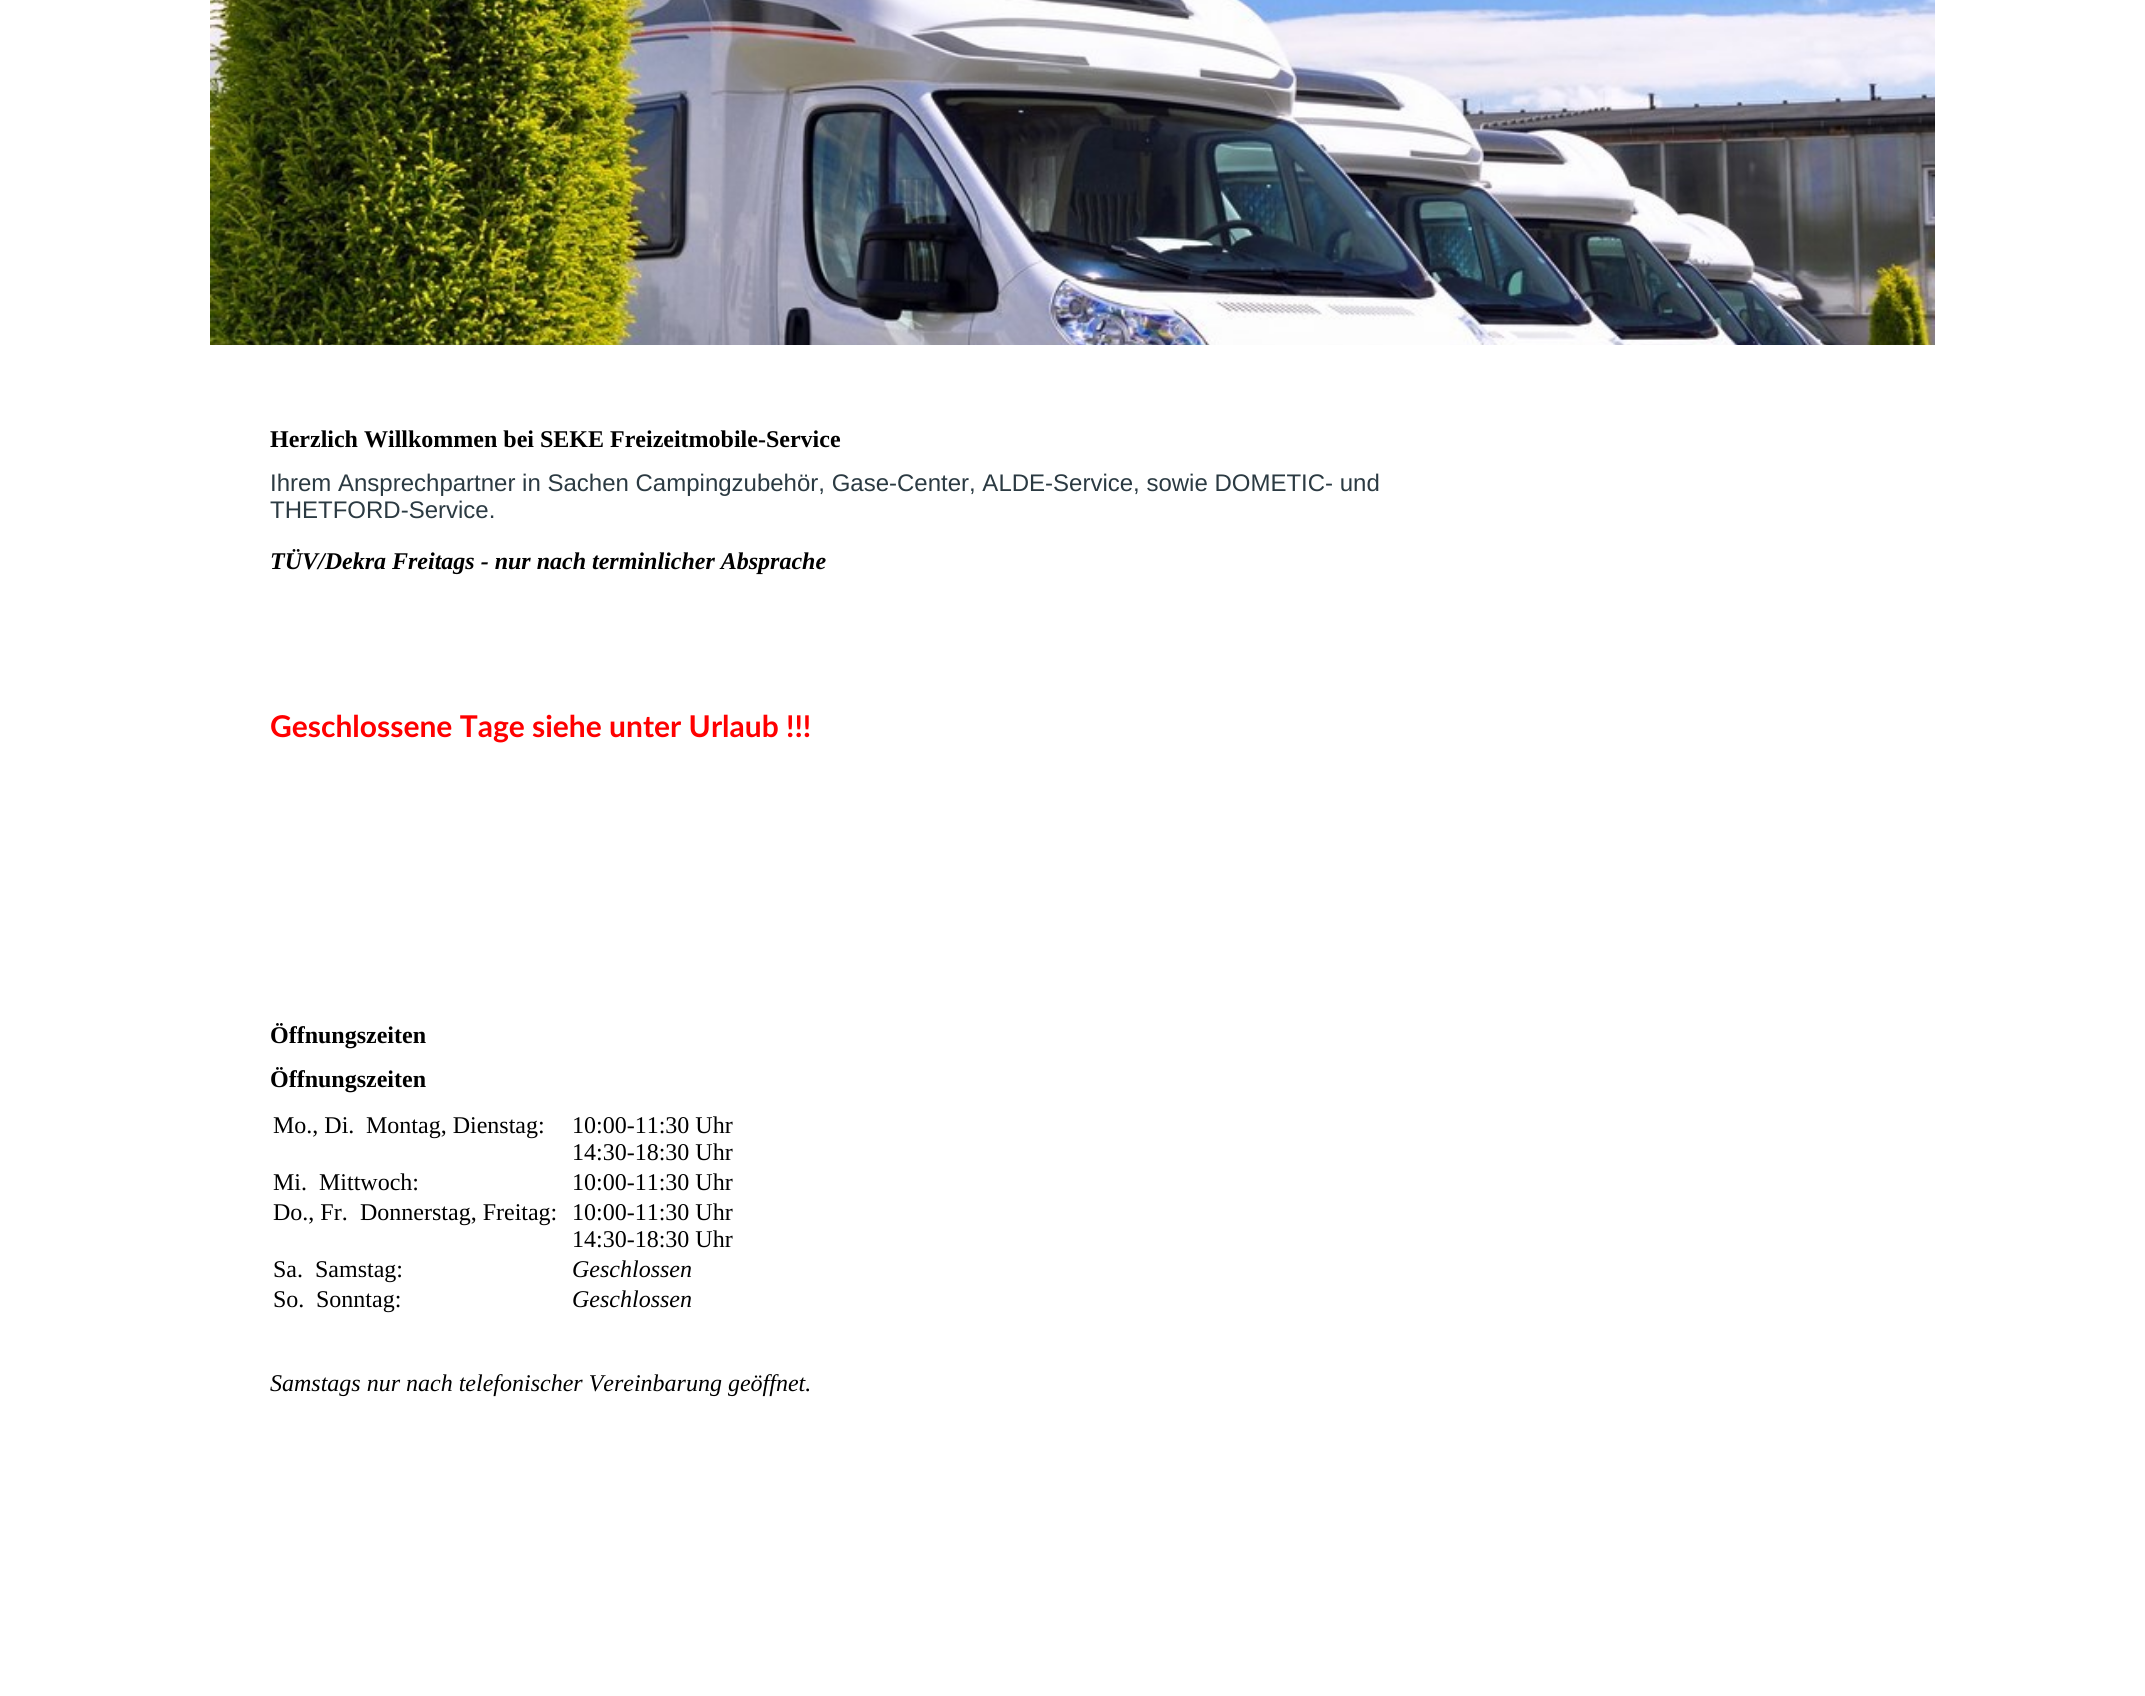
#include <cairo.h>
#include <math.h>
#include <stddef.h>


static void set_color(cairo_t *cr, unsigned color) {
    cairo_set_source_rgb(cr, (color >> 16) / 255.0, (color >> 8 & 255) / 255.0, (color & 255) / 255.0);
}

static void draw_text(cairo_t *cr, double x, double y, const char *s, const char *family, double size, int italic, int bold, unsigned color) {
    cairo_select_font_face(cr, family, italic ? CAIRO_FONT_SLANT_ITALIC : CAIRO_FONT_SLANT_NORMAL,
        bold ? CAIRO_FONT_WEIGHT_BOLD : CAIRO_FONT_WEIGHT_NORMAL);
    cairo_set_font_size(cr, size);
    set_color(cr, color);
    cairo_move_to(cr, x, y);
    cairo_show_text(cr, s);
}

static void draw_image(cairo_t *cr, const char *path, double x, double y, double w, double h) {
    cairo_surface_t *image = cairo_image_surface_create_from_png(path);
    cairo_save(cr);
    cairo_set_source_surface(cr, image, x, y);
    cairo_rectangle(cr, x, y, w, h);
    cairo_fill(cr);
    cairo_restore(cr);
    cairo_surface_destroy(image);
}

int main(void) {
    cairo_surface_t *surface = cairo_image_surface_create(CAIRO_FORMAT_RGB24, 2145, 1696);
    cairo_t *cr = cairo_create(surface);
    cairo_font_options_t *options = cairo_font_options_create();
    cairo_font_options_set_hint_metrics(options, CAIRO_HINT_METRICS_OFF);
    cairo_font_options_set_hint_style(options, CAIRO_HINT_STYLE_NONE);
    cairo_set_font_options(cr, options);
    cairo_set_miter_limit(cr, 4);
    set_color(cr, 0xFFFFFF);
    cairo_paint(cr);
    draw_image(cr, "assets/img1.png", 210, 0, 1725, 345);
    draw_text(cr, 270, 447, "Herzlich Willkommen bei SEKE Freizeitmobile-Service", "Liberation Serif", 24, 0, 1, 0x000000);
    draw_text(cr, 270, 491, "Ihrem Ansprechpartner in Sachen Campingzubehör, Gase-Center, ALDE-Service, sowie DOMETIC- und", "Liberation Sans", 24, 0, 0, 0x2B3A42);
    draw_text(cr, 270, 518, "THETFORD-Service.", "Liberation Sans", 24, 0, 0, 0x2B3A42);
    draw_text(cr, 270, 569, "TÜV/Dekra Freitags - nur nach terminlicher Absprache", "Liberation Serif", 24, 1, 1, 0x000000);
    draw_text(cr, 270, 737, "Geschlossene Tage siehe unter Urlaub !!!", "Lato", 30, 0, 1, 0xFF0000);
    draw_text(cr, 270, 1043, "Öffnungszeiten", "Liberation Serif", 24, 0, 1, 0x000000);
    draw_text(cr, 270, 1087, "Öffnungszeiten", "Liberation Serif", 24, 0, 1, 0x000000);
    draw_text(cr, 273, 1133, "Mo., Di.", "Liberation Serif", 24, 0, 0, 0x000000);
    draw_text(cr, 366, 1133, "Montag, Dienstag:", "Liberation Serif", 24, 0, 0, 0x000000);
    draw_text(cr, 572, 1133, "10:00-11:30 Uhr", "Liberation Serif", 24, 0, 0, 0x000000);
    draw_text(cr, 572, 1160, "14:30-18:30 Uhr", "Liberation Serif", 24, 0, 0, 0x000000);
    draw_text(cr, 273, 1190, "Mi.", "Liberation Serif", 24, 0, 0, 0x000000);
    draw_text(cr, 319, 1190, "Mittwoch:", "Liberation Serif", 24, 0, 0, 0x000000);
    draw_text(cr, 572, 1190, "10:00-11:30 Uhr", "Liberation Serif", 24, 0, 0, 0x000000);
    draw_text(cr, 273, 1220, "Do., Fr.", "Liberation Serif", 24, 0, 0, 0x000000);
    draw_text(cr, 360, 1220, "Donnerstag, Freitag:", "Liberation Serif", 24, 0, 0, 0x000000);
    draw_text(cr, 572, 1220, "10:00-11:30 Uhr", "Liberation Serif", 24, 0, 0, 0x000000);
    draw_text(cr, 572, 1247, "14:30-18:30 Uhr", "Liberation Serif", 24, 0, 0, 0x000000);
    draw_text(cr, 273, 1277, "Sa.", "Liberation Serif", 24, 0, 0, 0x000000);
    draw_text(cr, 315, 1277, "Samstag:", "Liberation Serif", 24, 0, 0, 0x000000);
    draw_text(cr, 572, 1277, "Geschlossen", "Liberation Serif", 24, 1, 0, 0x000000);
    draw_text(cr, 273, 1307, "So.", "Liberation Serif", 24, 0, 0, 0x000000);
    draw_text(cr, 316, 1307, "Sonntag:", "Liberation Serif", 24, 0, 0, 0x000000);
    draw_text(cr, 572, 1307, "Geschlossen", "Liberation Serif", 24, 1, 0, 0x000000);
    draw_text(cr, 270, 1391, "Samstags nur nach telefonischer Vereinbarung geöffnet.", "Liberation Serif", 24, 1, 0, 0x000000);
    cairo_surface_write_to_png(surface, "output.png");
    cairo_font_options_destroy(options);
    cairo_destroy(cr);
    cairo_surface_destroy(surface);
    return 0;
}
